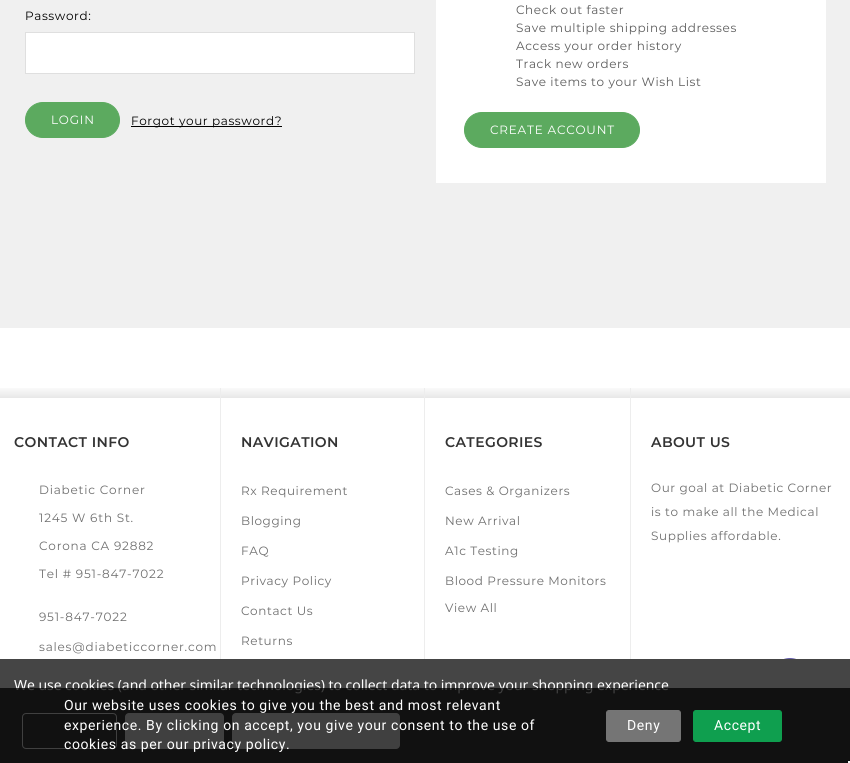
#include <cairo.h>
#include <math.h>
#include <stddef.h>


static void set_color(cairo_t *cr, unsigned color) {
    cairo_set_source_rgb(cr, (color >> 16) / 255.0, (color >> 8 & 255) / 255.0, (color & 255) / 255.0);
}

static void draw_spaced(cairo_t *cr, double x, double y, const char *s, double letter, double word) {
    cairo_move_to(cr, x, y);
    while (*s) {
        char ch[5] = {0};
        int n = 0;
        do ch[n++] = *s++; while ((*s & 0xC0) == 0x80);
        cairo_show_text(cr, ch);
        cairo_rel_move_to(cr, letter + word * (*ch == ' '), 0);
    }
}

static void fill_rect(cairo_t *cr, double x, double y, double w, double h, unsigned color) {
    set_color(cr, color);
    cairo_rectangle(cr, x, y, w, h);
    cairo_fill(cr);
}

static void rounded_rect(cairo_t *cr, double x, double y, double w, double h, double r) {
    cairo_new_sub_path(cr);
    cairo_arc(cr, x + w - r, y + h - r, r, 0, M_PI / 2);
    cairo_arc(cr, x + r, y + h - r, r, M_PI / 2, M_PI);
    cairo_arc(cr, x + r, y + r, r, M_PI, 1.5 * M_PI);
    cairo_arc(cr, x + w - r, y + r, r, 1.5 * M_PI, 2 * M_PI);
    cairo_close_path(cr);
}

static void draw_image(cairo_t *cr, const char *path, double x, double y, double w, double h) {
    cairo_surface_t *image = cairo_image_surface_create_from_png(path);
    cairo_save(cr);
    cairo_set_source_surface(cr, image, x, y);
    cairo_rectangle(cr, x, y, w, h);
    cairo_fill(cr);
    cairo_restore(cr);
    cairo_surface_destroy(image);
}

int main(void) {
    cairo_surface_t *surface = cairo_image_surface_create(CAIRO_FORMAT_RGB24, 850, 763);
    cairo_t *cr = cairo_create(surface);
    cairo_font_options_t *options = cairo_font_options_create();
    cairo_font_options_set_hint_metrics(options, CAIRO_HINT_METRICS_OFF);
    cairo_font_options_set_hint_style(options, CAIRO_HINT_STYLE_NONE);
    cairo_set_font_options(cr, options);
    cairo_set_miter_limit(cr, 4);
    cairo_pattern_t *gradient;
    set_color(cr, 0xFFFFFF);
    cairo_paint(cr);
    fill_rect(cr, 0, 0, 850, 328, 0xF0F0F0);
    cairo_select_font_face(cr, "Montserrat", CAIRO_FONT_SLANT_NORMAL, CAIRO_FONT_WEIGHT_NORMAL);
    cairo_set_font_size(cr, 12);
    set_color(cr, 0x000000);
    draw_spaced(cr, 25, 20, "Password:", 0.6, 0);
    set_color(cr, 0xFFFFFF);
    cairo_rectangle(cr, 25.5, 32.5, 389, 41);
    cairo_fill_preserve(cr);
    set_color(cr, 0xDFDFDF);
    cairo_set_line_width(cr, 1);
    cairo_stroke(cr);
    set_color(cr, 0x5CAA5F);
    rounded_rect(cr, 25.5, 102.5, 94, 35, 17.5);
    cairo_fill_preserve(cr);
    cairo_stroke(cr);
    set_color(cr, 0xFFFFFF);
    draw_spaced(cr, 51, 124, "LOGIN", 0.8, 0);
    fill_rect(cr, 131, 126, 151, 1, 0x000000);
    draw_spaced(cr, 131, 125, "Forgot your password?", 0.6, 0);
    fill_rect(cr, 436, 0, 390, 183, 0xFFFFFF);
    set_color(cr, 0x5D5D5D);
    draw_spaced(cr, 516, 14, "Check out faster", 0.6, 0);
    draw_spaced(cr, 516, 32, "Save multiple shipping addresses", 0.6, 0);
    draw_spaced(cr, 516, 50, "Access your order history", 0.6, 0);
    draw_spaced(cr, 516, 68, "Track new orders", 0.6, 0);
    draw_spaced(cr, 516, 86, "Save items to your Wish List", 0.6, 0);
    set_color(cr, 0x5CAA5F);
    rounded_rect(cr, 464.5, 112.5, 175, 35, 17.5);
    cairo_fill_preserve(cr);
    cairo_stroke(cr);
    set_color(cr, 0xFFFFFF);
    draw_spaced(cr, 490, 134, "CREATE ACCOUNT", 0.8, 0);
    gradient = cairo_pattern_create_linear(425, 388, 425, 398);
    cairo_pattern_add_color_stop_rgba(gradient, 0, 0.98, 0.98, 0.98, 1);
    cairo_pattern_add_color_stop_rgba(gradient, 1, 0.906, 0.906, 0.906, 1);
    cairo_set_source(cr, gradient);
    cairo_pattern_destroy(gradient);
    cairo_rectangle(cr, 0, 388, 850, 10);
    cairo_fill(cr);
    cairo_select_font_face(cr, "Montserrat SemiBold", CAIRO_FONT_SLANT_NORMAL, CAIRO_FONT_WEIGHT_NORMAL);
    cairo_set_font_size(cr, 14);
    set_color(cr, 0x333333);
    draw_spaced(cr, 14, 447, "CONTACT INFO", 0.4, 0);
    cairo_select_font_face(cr, "Montserrat", CAIRO_FONT_SLANT_NORMAL, CAIRO_FONT_WEIGHT_NORMAL);
    cairo_set_font_size(cr, 12);
    set_color(cr, 0x6F6F6F);
    draw_spaced(cr, 39, 494, "Diabetic Corner", 0.8, 0);
    draw_spaced(cr, 39, 522, "1245 W 6th St.", 0.8, 0);
    draw_spaced(cr, 39, 550, "Corona CA 92882", 0.8, 0);
    draw_spaced(cr, 39, 578, "Tel # 951-847-7022", 0.8, 0);
    draw_spaced(cr, 39, 621, "951-847-7022", 0.8, 0);
    draw_spaced(cr, 39, 651, "sales@diabeticcorner.com", 0.8, 0);
    fill_rect(cr, 424, 388, 1, 271, 0xEDEDED);
    fill_rect(cr, 220, 388, 1, 271, 0xEDEDED);
    cairo_select_font_face(cr, "Montserrat SemiBold", CAIRO_FONT_SLANT_NORMAL, CAIRO_FONT_WEIGHT_NORMAL);
    cairo_set_font_size(cr, 14);
    set_color(cr, 0x333333);
    draw_spaced(cr, 241, 447, "NAVIGATION", 0.4, 0);
    cairo_select_font_face(cr, "Montserrat", CAIRO_FONT_SLANT_NORMAL, CAIRO_FONT_WEIGHT_NORMAL);
    cairo_set_font_size(cr, 12);
    set_color(cr, 0x6F6F6F);
    draw_spaced(cr, 241, 495, "Rx Requirement", 0.6, 0);
    draw_spaced(cr, 241, 525, "Blogging", 0.6, 0);
    draw_spaced(cr, 241, 555, "FAQ", 0.6, 0);
    draw_spaced(cr, 241, 585, "Privacy Policy", 0.6, 0);
    draw_spaced(cr, 241, 615, "Contact Us", 0.6, 0);
    draw_spaced(cr, 241, 645, "Returns", 0.6, 0);
    fill_rect(cr, 630, 388, 1, 271, 0xEDEDED);
    cairo_select_font_face(cr, "Montserrat SemiBold", CAIRO_FONT_SLANT_NORMAL, CAIRO_FONT_WEIGHT_NORMAL);
    cairo_set_font_size(cr, 14);
    set_color(cr, 0x333333);
    draw_spaced(cr, 445, 447, "CATEGORIES", 0.4, 0);
    cairo_select_font_face(cr, "Montserrat", CAIRO_FONT_SLANT_NORMAL, CAIRO_FONT_WEIGHT_NORMAL);
    cairo_set_font_size(cr, 12);
    set_color(cr, 0x6F6F6F);
    draw_spaced(cr, 445, 495, "Cases & Organizers", 0.6, 0);
    draw_spaced(cr, 445, 525, "New Arrival", 0.6, 0);
    draw_spaced(cr, 445, 555, "A1c Testing", 0.6, 0);
    draw_spaced(cr, 445, 585, "Blood Pressure Monitors", 0.6, 0);
    draw_spaced(cr, 445, 612, "View All", 0.6, 0);
    cairo_select_font_face(cr, "Montserrat SemiBold", CAIRO_FONT_SLANT_NORMAL, CAIRO_FONT_WEIGHT_NORMAL);
    cairo_set_font_size(cr, 14);
    set_color(cr, 0x333333);
    draw_spaced(cr, 651, 447, "ABOUT US", 0.4, 0);
    cairo_select_font_face(cr, "Montserrat", CAIRO_FONT_SLANT_NORMAL, CAIRO_FONT_WEIGHT_NORMAL);
    cairo_set_font_size(cr, 12);
    set_color(cr, 0x6F6F6F);
    draw_spaced(cr, 651, 492, "Our goal at Diabetic Corner", 0.6, 0);
    draw_spaced(cr, 651, 516, "is to make all the Medical", 0.6, 0);
    draw_spaced(cr, 651, 540, "Supplies affordable.", 0.6, 0);
    draw_image(cr, "assets/img1.png", 784, 658, 12, 1);
    fill_rect(cr, 0, 659, 850, 104, 0x454545);
    cairo_select_font_face(cr, "Noto Sans", CAIRO_FONT_SLANT_NORMAL, CAIRO_FONT_WEIGHT_NORMAL);
    cairo_set_font_size(cr, 14);
    set_color(cr, 0xFFFFFF);
    draw_spaced(cr, 14, 690, "We use cookies (and other similar technologies) to collect data to improve your shopping experience", -0.05, 0);
    rounded_rect(cr, 22.5, 713.5, 94, 35, 3.5);
    cairo_stroke(cr);
    rounded_rect(cr, 125, 713, 99, 36, 4);
    cairo_fill(cr);
    rounded_rect(cr, 232, 713, 168, 36, 4);
    cairo_fill(cr);
    cairo_set_source_rgba(cr, 0, 0, 0, 0.75);
    cairo_rectangle(cr, 0, 688, 850, 75);
    cairo_fill(cr);
    cairo_select_font_face(cr, "Roboto", CAIRO_FONT_SLANT_NORMAL, CAIRO_FONT_WEIGHT_NORMAL);
    set_color(cr, 0xFFFFFF);
    draw_spaced(cr, 64, 710, "Our website uses cookies to give you the best and most relevant", 0.6, 0);
    draw_spaced(cr, 64, 730, "experience. By clicking on accept, you give your consent to the use of", 0.6, 0);
    draw_spaced(cr, 64, 749, "cookies as per our privacy policy.", 0.6, 0);
    set_color(cr, 0x757575);
    rounded_rect(cr, 606.5, 710.5, 74, 31, 2.5);
    cairo_fill_preserve(cr);
    cairo_stroke(cr);
    set_color(cr, 0xFFFFFF);
    draw_spaced(cr, 627, 730, "Deny", 0.6, 0);
    set_color(cr, 0x0F9F4F);
    rounded_rect(cr, 693.5, 710.5, 88, 31, 2.5);
    cairo_fill_preserve(cr);
    cairo_stroke(cr);
    set_color(cr, 0xFFFFFF);
    draw_spaced(cr, 714, 730, "Accept", 0.6, 0);
    fill_rect(cr, 848, 761, 2, 2, 0xF5F5F5);
    cairo_surface_write_to_png(surface, "output.png");
    cairo_font_options_destroy(options);
    cairo_destroy(cr);
    cairo_surface_destroy(surface);
    return 0;
}
